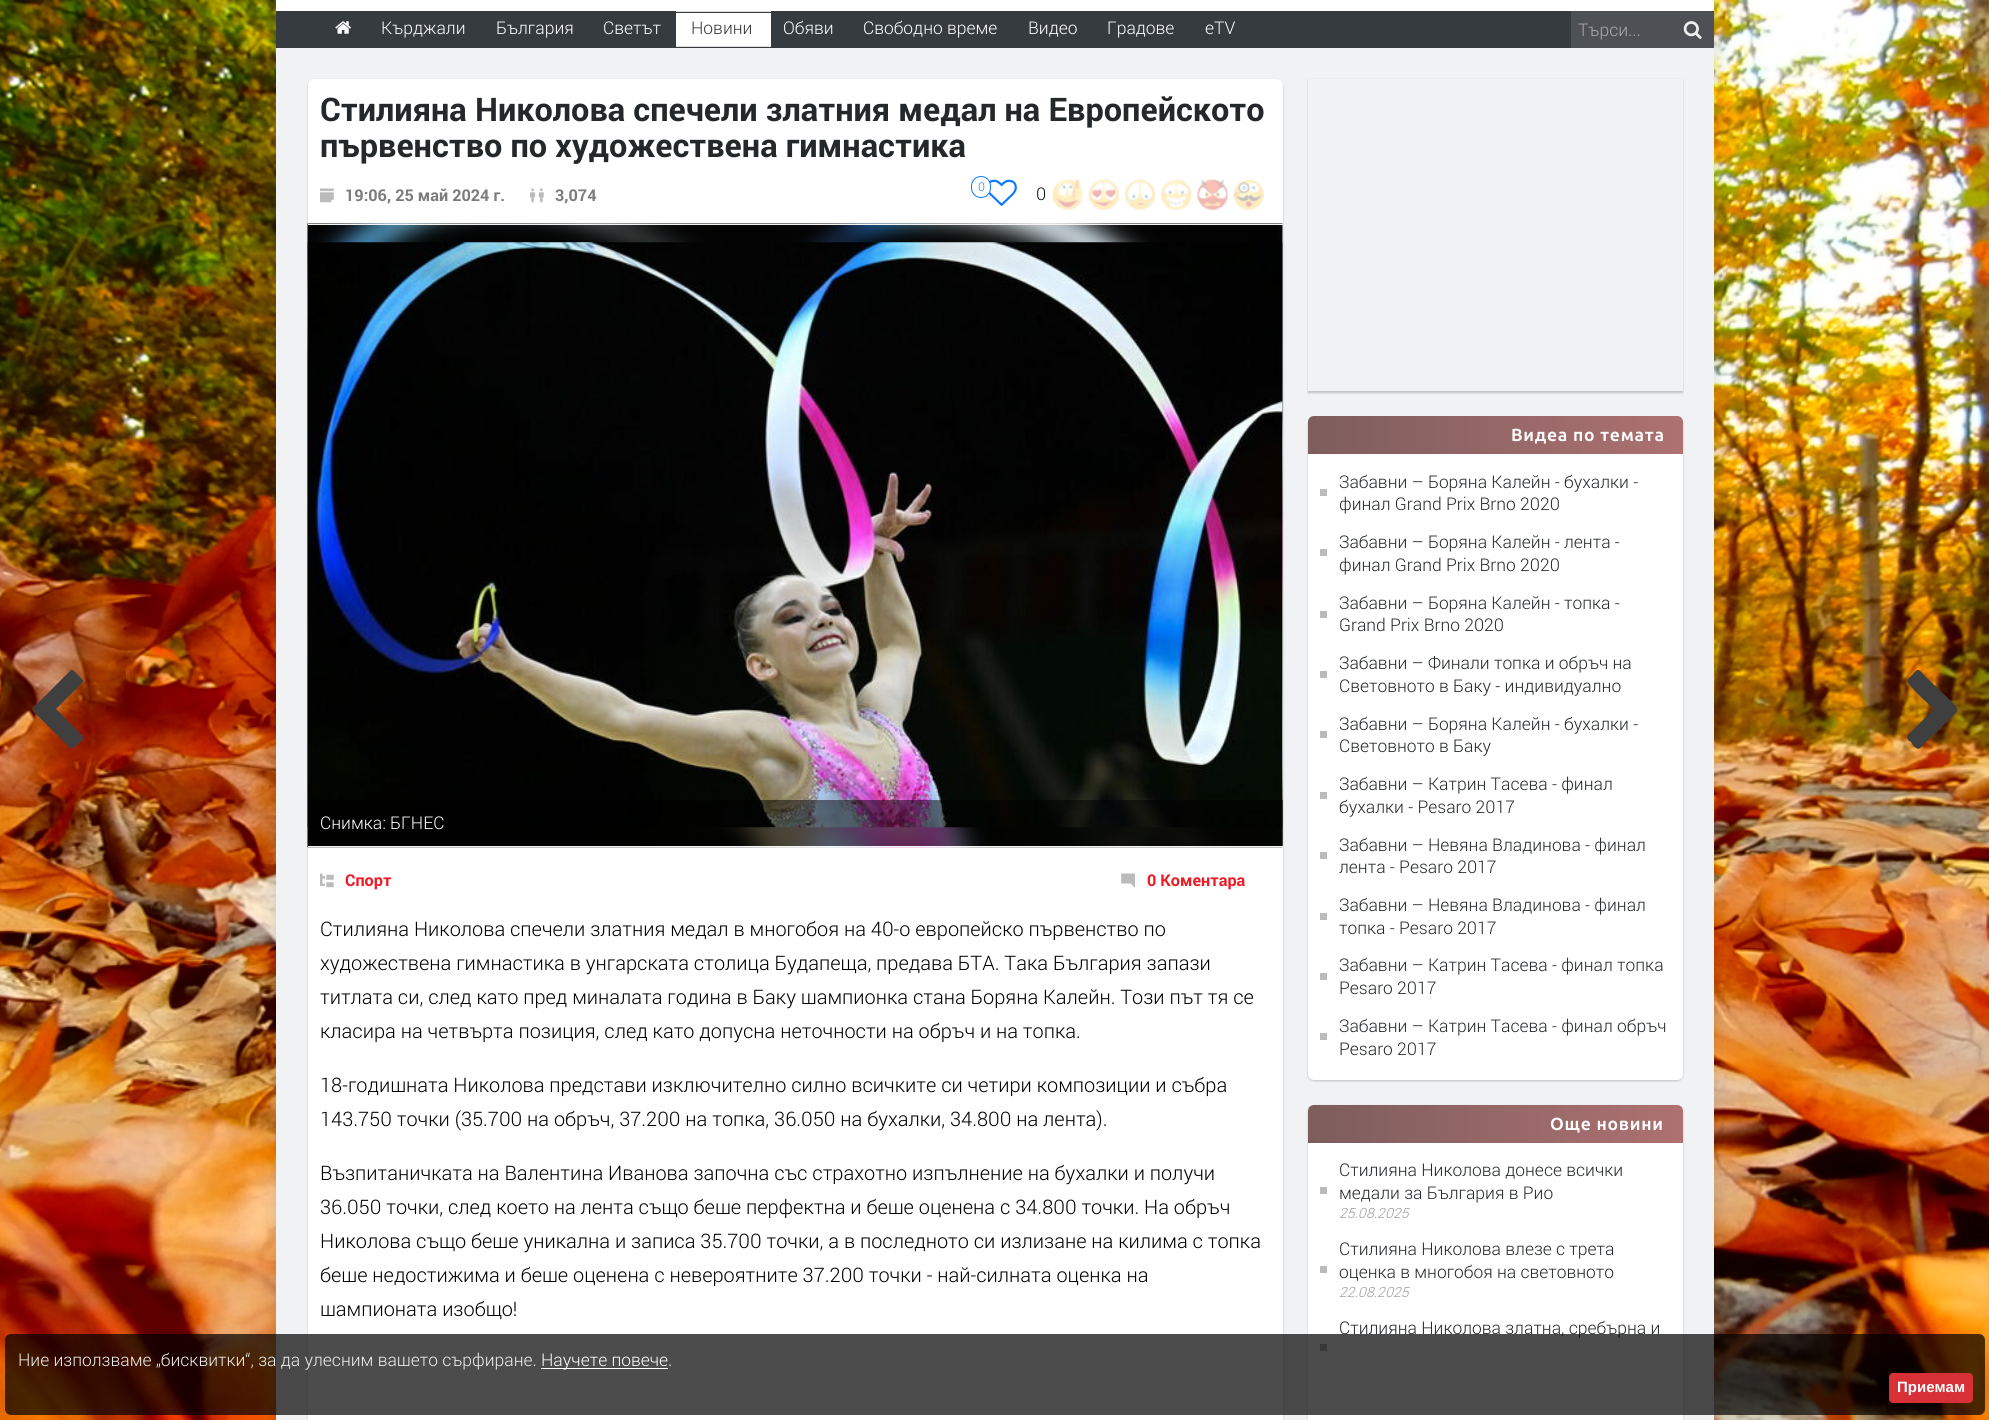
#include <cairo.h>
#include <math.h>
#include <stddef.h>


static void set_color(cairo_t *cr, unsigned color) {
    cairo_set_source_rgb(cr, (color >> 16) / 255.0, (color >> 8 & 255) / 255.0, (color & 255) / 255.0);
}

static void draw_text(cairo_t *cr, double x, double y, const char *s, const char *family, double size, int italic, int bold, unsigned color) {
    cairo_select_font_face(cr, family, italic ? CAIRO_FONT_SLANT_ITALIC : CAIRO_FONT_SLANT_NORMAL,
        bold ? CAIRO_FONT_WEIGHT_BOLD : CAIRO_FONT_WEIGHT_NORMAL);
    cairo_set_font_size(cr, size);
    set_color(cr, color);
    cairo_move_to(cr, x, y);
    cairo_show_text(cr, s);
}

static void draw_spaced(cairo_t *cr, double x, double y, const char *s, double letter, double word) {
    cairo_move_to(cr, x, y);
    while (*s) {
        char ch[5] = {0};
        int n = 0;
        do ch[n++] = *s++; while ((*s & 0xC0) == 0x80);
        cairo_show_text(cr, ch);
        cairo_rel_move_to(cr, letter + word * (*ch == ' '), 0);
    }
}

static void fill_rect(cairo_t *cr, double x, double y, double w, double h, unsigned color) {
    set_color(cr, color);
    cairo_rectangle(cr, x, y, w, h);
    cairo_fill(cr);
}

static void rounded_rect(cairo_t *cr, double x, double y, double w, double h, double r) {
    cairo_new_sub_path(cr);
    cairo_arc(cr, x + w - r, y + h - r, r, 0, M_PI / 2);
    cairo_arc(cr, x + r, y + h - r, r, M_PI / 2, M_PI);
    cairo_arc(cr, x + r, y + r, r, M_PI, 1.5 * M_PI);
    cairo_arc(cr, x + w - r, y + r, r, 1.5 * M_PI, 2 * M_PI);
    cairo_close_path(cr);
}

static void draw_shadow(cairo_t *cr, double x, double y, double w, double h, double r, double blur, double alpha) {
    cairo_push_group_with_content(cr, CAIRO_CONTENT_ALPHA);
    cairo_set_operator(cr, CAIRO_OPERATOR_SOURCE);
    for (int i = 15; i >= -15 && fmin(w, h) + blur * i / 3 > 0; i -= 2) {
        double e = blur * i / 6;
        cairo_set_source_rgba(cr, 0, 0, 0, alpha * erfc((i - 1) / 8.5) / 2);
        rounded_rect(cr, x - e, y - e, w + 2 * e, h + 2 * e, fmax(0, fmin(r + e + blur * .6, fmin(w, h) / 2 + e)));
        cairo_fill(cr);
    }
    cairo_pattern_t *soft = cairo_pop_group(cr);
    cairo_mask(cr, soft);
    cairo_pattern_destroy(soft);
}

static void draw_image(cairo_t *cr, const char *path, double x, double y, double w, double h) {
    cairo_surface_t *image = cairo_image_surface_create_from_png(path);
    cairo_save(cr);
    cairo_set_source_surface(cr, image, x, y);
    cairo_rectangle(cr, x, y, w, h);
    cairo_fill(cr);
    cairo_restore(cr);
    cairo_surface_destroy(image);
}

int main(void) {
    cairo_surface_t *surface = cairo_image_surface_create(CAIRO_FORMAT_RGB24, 1989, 1420);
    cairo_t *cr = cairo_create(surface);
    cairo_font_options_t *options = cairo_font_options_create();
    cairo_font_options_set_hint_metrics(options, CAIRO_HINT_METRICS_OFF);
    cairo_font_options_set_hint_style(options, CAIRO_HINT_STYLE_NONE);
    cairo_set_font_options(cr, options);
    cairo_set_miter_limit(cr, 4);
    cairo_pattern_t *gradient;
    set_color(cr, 0xFFFFFF);
    cairo_paint(cr);
    draw_image(cr, "assets/img1.png", 0, 0, 1989, 1420);
    set_color(cr, 0x000000);
    draw_shadow(cr, 276, -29, 1438, 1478, 0, 9.5, 0.15);
    fill_rect(cr, 276, 48, 1438, 1372, 0xF1F2F3);
    fill_rect(cr, 276, 0, 1438, 11, 0xFFFFFF);
    fill_rect(cr, 276, 11, 1295, 37, 0x363B40);
    draw_image(cr, "assets/img2.png", 335, 21, 16, 13);
    draw_text(cr, 381, 34, "Кърджали", "Roboto Light", 17.5, 0, 0, 0xFFFFFF);
    draw_text(cr, 496, 34, "България", "Roboto Light", 17.5, 0, 0, 0xFFFFFF);
    draw_text(cr, 603, 34, "Светът", "Roboto Light", 17.5, 0, 0, 0xFFFFFF);
    fill_rect(cr, 676, 13, 95, 33, 0xFFFFFF);
    fill_rect(cr, 676, 11, 95, 1, 0xDDDDDD);
    fill_rect(cr, 676, 46, 95, 1, 0xDDDDDD);
    draw_text(cr, 691, 34, "Новини", "Roboto Light", 17.5, 0, 0, 0x383737);
    draw_text(cr, 783, 34, "Обяви", "Roboto Light", 17.5, 0, 0, 0xFFFFFF);
    draw_text(cr, 863, 34, "Свободно време", "Roboto Light", 17.5, 0, 0, 0xFFFFFF);
    draw_text(cr, 1028, 34, "Видео", "Roboto Light", 17.5, 0, 0, 0xFFFFFF);
    draw_text(cr, 1107, 34, "Градове", "Roboto Light", 17.5, 0, 0, 0xFFFFFF);
    draw_text(cr, 1205, 34, "eTV", "Roboto Light", 17.5, 0, 0, 0xFFFFFF);
    fill_rect(cr, 1571, 11, 143, 37, 0x4D5156);
    draw_text(cr, 1578, 36, "Търси...", "Roboto Light", 17.5, 0, 0, 0xABABAB);
    draw_image(cr, "assets/img3.png", 1683, 21, 19, 18);
    set_color(cr, 0x3F3F3F);
    cairo_new_path(cr);
    cairo_move_to(cr, 82, 683);
    cairo_line_to(cr, 56, 709);
    cairo_line_to(cr, 78, 731);
    cairo_curve_to(cr, 86, 739, 84, 738, 77, 745);
    cairo_curve_to(cr, 70, 751, 71, 749, 64, 742);
    cairo_line_to(cr, 33, 711);
    cairo_line_to(cr, 33, 708);
    cairo_line_to(cr, 70, 671);
    cairo_curve_to(cr, 72, 668, 75, 672, 77, 674);
    cairo_line_to(cr, 83, 680);
    cairo_curve_to(cr, 83, 681, 83, 682, 82, 683);
    cairo_close_path(cr);
    cairo_fill(cr);
    set_color(cr, 0x000000);
    draw_shadow(cr, 308, 80, 975, 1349, 6, 1, 0.2);
    set_color(cr, 0xFFFFFF);
    rounded_rect(cr, 308, 79, 975, 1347, 6);
    cairo_fill(cr);
    draw_text(cr, 320, 121, "Стилияна Николова спечели златния медал на Европейското", "Roboto", 32.5, 0, 1, 0x25282A);
    draw_text(cr, 320, 157, "първенство по художествена гимнастика", "Roboto", 32.5, 0, 1, 0x25282A);
    draw_image(cr, "assets/img4.png", 320, 188, 14, 15);
    draw_text(cr, 345, 201, "19:06, 25 май 2024 г.", "Roboto", 16.25, 0, 1, 0x7C7C7C);
    draw_image(cr, "assets/img5.png", 530, 188, 14, 15);
    draw_text(cr, 555, 201, "3,074", "Roboto", 16.25, 0, 1, 0x7C7C7C);
    draw_image(cr, "assets/img6.png", 989, 179, 28, 27);
    set_color(cr, 0xFFFFFF);
    rounded_rect(cr, 971.5, 176.5, 19, 21, 9.5);
    cairo_fill_preserve(cr);
    set_color(cr, 0x0E7AFE);
    cairo_set_line_width(cr, 1);
    cairo_stroke(cr);
    draw_text(cr, 978, 191, "0", "Roboto Light", 12, 0, 0, 0x0E7AFE);
    draw_text(cr, 1036, 200, "0", "Roboto Light", 17.5, 0, 0, 0x111111);
    draw_image(cr, "assets/img7.png", 1052, 179, 31, 31);
    draw_image(cr, "assets/img8.png", 1088, 179, 31, 31);
    draw_image(cr, "assets/img9.png", 1125, 179, 30, 31);
    draw_image(cr, "assets/img10.png", 1161, 179, 31, 31);
    draw_image(cr, "assets/img11.png", 1197, 179, 31, 31);
    draw_image(cr, "assets/img12.png", 1233, 179, 31, 31);
    draw_image(cr, "assets/img13.png", 307, 223, 976, 625);
    fill_rect(cr, 308, 224, 975, 1, 0xF4F4F4);
    fill_rect(cr, 308, 846, 975, 1, 0xF4F4F4);
    draw_image(cr, "assets/img14.png", 307, 242, 976, 586);
    cairo_set_source_rgba(cr, 0, 0, 0, 0.5);
    cairo_rectangle(cr, 308, 800, 975, 46);
    cairo_fill(cr);
    draw_text(cr, 320, 829, "Снимка: БГНЕС", "Roboto Light", 17.5, 0, 0, 0xFFFFFF);
    draw_image(cr, "assets/img15.png", 320, 873, 14, 15);
    draw_text(cr, 345, 886, "Спорт", "Roboto", 16.25, 0, 1, 0xED1C24);
    draw_image(cr, "assets/img16.png", 1121, 873, 14, 15);
    draw_text(cr, 1147, 886, "0 Коментара", "Roboto", 16.25, 0, 1, 0xED1C24);
    draw_text(cr, 320, 936, "Стилияна Николова спечели златния медал в многобоя на 40-о европейско първенство по", "Roboto Light", 20, 0, 0, 0x000000);
    draw_text(cr, 320, 970, "художествена гимнастика в унгарската столица Будапеща, предава БТА. Така България запази", "Roboto Light", 20, 0, 0, 0x000000);
    draw_text(cr, 320, 1004, "титлата си, след като пред миналата година в Баку шампионка стана Боряна Калейн. Този път тя се", "Roboto Light", 20, 0, 0, 0x000000);
    draw_text(cr, 320, 1038, "класира на четвърта позиция, след като допусна неточности на обръч и на топка.", "Roboto Light", 20, 0, 0, 0x000000);
    draw_text(cr, 320, 1092, "18-годишната Николова представи изключително силно всичките си четири композиции и събра", "Roboto Light", 20, 0, 0, 0x000000);
    draw_text(cr, 320, 1126, "143.750 точки (35.700 на обръч, 37.200 на топка, 36.050 на бухалки, 34.800 на лента).", "Roboto Light", 20, 0, 0, 0x000000);
    draw_text(cr, 320, 1180, "Възпитаничката на Валентина Иванова започна със страхотно изпълнение на бухалки и получи", "Roboto Light", 20, 0, 0, 0x000000);
    draw_text(cr, 320, 1214, "36.050 точки, след което на лента също беше перфектна и беше оценена с 34.800 точки. На обръч", "Roboto Light", 20, 0, 0, 0x000000);
    draw_text(cr, 320, 1248, "Николова също беше уникална и записа 35.700 точки, а в последното си излизане на килима с топка", "Roboto Light", 20, 0, 0, 0x000000);
    draw_text(cr, 320, 1282, "беше недостижима и беше оценена с невероятните 37.200 точки - най-силната оценка на", "Roboto Light", 20, 0, 0, 0x000000);
    draw_text(cr, 320, 1316, "шампионата изобщо!", "Roboto Light", 20, 0, 0, 0x000000);
    cairo_save(cr);
    cairo_set_fill_rule(cr, CAIRO_FILL_RULE_EVEN_ODD);
    cairo_new_path(cr);
    cairo_move_to(cr, 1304, 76);
    cairo_line_to(cr, 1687, 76);
    cairo_line_to(cr, 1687, 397);
    cairo_line_to(cr, 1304, 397);
    cairo_close_path(cr);
    cairo_move_to(cr, 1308, 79);
    cairo_line_to(cr, 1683, 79);
    cairo_line_to(cr, 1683, 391);
    cairo_line_to(cr, 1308, 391);
    cairo_close_path(cr);
    cairo_clip(cr);
    set_color(cr, 0x000000);
    draw_shadow(cr, 1308, 80, 375, 313, 0, 1, 0.2);
    cairo_restore(cr);
    set_color(cr, 0x000000);
    draw_shadow(cr, 1308, 418, 375, 663, 6, 1, 0.2);
    set_color(cr, 0xFFFFFF);
    rounded_rect(cr, 1308, 416, 375, 664, 6);
    cairo_fill(cr);
    gradient = cairo_pattern_create_linear(1308, 435, 1683, 435);
    cairo_pattern_add_color_stop_rgba(gradient, 0, 0.49, 0.365, 0.365, 1);
    cairo_pattern_add_color_stop_rgba(gradient, 1, 0.682, 0.443, 0.443, 1);
    cairo_set_source(cr, gradient);
    cairo_pattern_destroy(gradient);
    cairo_new_path(cr);
    cairo_move_to(cr, 1314, 416);
    cairo_line_to(cr, 1677, 416);
    cairo_curve_to(cr, 1680.5, 416, 1683, 418.5, 1683, 422);
    cairo_line_to(cr, 1683, 454);
    cairo_line_to(cr, 1308, 454);
    cairo_line_to(cr, 1308, 422);
    cairo_curve_to(cr, 1308, 418.5, 1310.5, 416, 1314, 416);
    cairo_close_path(cr);
    cairo_fill(cr);
    cairo_select_font_face(cr, "Ubuntu", CAIRO_FONT_SLANT_NORMAL, CAIRO_FONT_WEIGHT_BOLD);
    cairo_set_font_size(cr, 17.5);
    set_color(cr, 0xFFFFFF);
    draw_spaced(cr, 1511, 441, "Видеа по темата", 0.75, 0);
    fill_rect(cr, 1320, 489, 7, 7, 0xBBBBBB);
    draw_text(cr, 1339, 488, "Забавни – Боряна Калейн - бухалки -", "Roboto Light", 17.5, 0, 0, 0x25282A);
    draw_text(cr, 1339, 510, "финал Grand Prix Brno 2020", "Roboto Light", 17.5, 0, 0, 0x25282A);
    fill_rect(cr, 1320, 549, 7, 7, 0xBBBBBB);
    draw_text(cr, 1339, 548, "Забавни – Боряна Калейн - лента -", "Roboto Light", 17.5, 0, 0, 0x25282A);
    draw_text(cr, 1339, 571, "финал Grand Prix Brno 2020", "Roboto Light", 17.5, 0, 0, 0x25282A);
    fill_rect(cr, 1320, 611, 7, 7, 0xBBBBBB);
    draw_text(cr, 1339, 609, "Забавни – Боряна Калейн - топка -", "Roboto Light", 17.5, 0, 0, 0x25282A);
    draw_text(cr, 1339, 631, "Grand Prix Brno 2020", "Roboto Light", 17.5, 0, 0, 0x25282A);
    fill_rect(cr, 1320, 671, 7, 7, 0xBBBBBB);
    draw_text(cr, 1339, 669, "Забавни – Финали топка и обръч на", "Roboto Light", 17.5, 0, 0, 0x25282A);
    draw_text(cr, 1339, 692, "Световното в Баку - индивидуално", "Roboto Light", 17.5, 0, 0, 0x25282A);
    fill_rect(cr, 1320, 731, 7, 7, 0xBBBBBB);
    draw_text(cr, 1339, 730, "Забавни – Боряна Калейн - бухалки -", "Roboto Light", 17.5, 0, 0, 0x25282A);
    draw_text(cr, 1339, 752, "Световното в Баку", "Roboto Light", 17.5, 0, 0, 0x25282A);
    fill_rect(cr, 1320, 792, 7, 7, 0xBBBBBB);
    draw_text(cr, 1339, 790, "Забавни – Катрин Тасева - финал", "Roboto Light", 17.5, 0, 0, 0x25282A);
    draw_text(cr, 1339, 813, "бухалки - Pesaro 2017", "Roboto Light", 17.5, 0, 0, 0x25282A);
    fill_rect(cr, 1320, 852, 7, 7, 0xBBBBBB);
    draw_text(cr, 1339, 851, "Забавни – Невяна Владинова - финал", "Roboto Light", 17.5, 0, 0, 0x25282A);
    draw_text(cr, 1339, 873, "лента - Pesaro 2017", "Roboto Light", 17.5, 0, 0, 0x25282A);
    fill_rect(cr, 1320, 913, 7, 7, 0xBBBBBB);
    draw_text(cr, 1339, 911, "Забавни – Невяна Владинова - финал", "Roboto Light", 17.5, 0, 0, 0x25282A);
    draw_text(cr, 1339, 934, "топка - Pesaro 2017", "Roboto Light", 17.5, 0, 0, 0x25282A);
    fill_rect(cr, 1320, 973, 7, 7, 0xBBBBBB);
    draw_text(cr, 1339, 971, "Забавни – Катрин Тасева - финал топка", "Roboto Light", 17.5, 0, 0, 0x25282A);
    draw_text(cr, 1339, 994, "Pesaro 2017", "Roboto Light", 17.5, 0, 0, 0x25282A);
    fill_rect(cr, 1320, 1033, 7, 7, 0xBBBBBB);
    draw_text(cr, 1339, 1032, "Забавни – Катрин Тасева - финал обръч", "Roboto Light", 17.5, 0, 0, 0x25282A);
    draw_text(cr, 1339, 1055, "Pesaro 2017", "Roboto Light", 17.5, 0, 0, 0x25282A);
    set_color(cr, 0x000000);
    draw_shadow(cr, 1308, 1106, 375, 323, 6, 1, 0.2);
    set_color(cr, 0xFFFFFF);
    rounded_rect(cr, 1308, 1105, 375, 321, 6);
    cairo_fill(cr);
    gradient = cairo_pattern_create_linear(1308, 1124, 1683, 1124);
    cairo_pattern_add_color_stop_rgba(gradient, 0, 0.49, 0.365, 0.365, 1);
    cairo_pattern_add_color_stop_rgba(gradient, 1, 0.682, 0.443, 0.443, 1);
    cairo_set_source(cr, gradient);
    cairo_pattern_destroy(gradient);
    cairo_new_path(cr);
    cairo_move_to(cr, 1314, 1105);
    cairo_line_to(cr, 1677, 1105);
    cairo_curve_to(cr, 1680.5, 1105, 1683, 1107.5, 1683, 1111);
    cairo_line_to(cr, 1683, 1143);
    cairo_line_to(cr, 1308, 1143);
    cairo_line_to(cr, 1308, 1111);
    cairo_curve_to(cr, 1308, 1107.5, 1310.5, 1105, 1314, 1105);
    cairo_close_path(cr);
    cairo_fill(cr);
    cairo_select_font_face(cr, "Ubuntu", CAIRO_FONT_SLANT_NORMAL, CAIRO_FONT_WEIGHT_BOLD);
    set_color(cr, 0xFFFFFF);
    draw_spaced(cr, 1550, 1130, "Още новини", 0.75, 0);
    fill_rect(cr, 1320, 1187, 7, 7, 0xBBBBBB);
    draw_text(cr, 1339, 1176, "Стилияна Николова донесе всички", "Roboto Light", 17.5, 0, 0, 0x25282A);
    draw_text(cr, 1339, 1199, "медали за България в Рио", "Roboto Light", 17.5, 0, 0, 0x25282A);
    draw_text(cr, 1339, 1218, "25.08.2025", "Roboto Light", 14, 1, 0, 0x999999);
    fill_rect(cr, 1320, 1266, 7, 7, 0xBBBBBB);
    draw_text(cr, 1339, 1255, "Стилияна Николова влезе с трета", "Roboto Light", 17.5, 0, 0, 0x25282A);
    draw_text(cr, 1339, 1278, "оценка в многобоя на световното", "Roboto Light", 17.5, 0, 0, 0x25282A);
    draw_text(cr, 1339, 1297, "22.08.2025", "Roboto Light", 14, 1, 0, 0x999999);
    fill_rect(cr, 1320, 1344, 7, 7, 0xBBBBBB);
    draw_text(cr, 1339, 1334, "Стилияна Николова златна, сребърна и", "Roboto Light", 17.5, 0, 0, 0x25282A);
    set_color(cr, 0x3F3F3F);
    cairo_new_path(cr);
    cairo_move_to(cr, 1957, 712);
    cairo_line_to(cr, 1920, 748);
    cairo_curve_to(cr, 1917, 751, 1912, 744, 1911, 742);
    cairo_curve_to(cr, 1909, 741, 1905, 738, 1908, 735);
    cairo_line_to(cr, 1934, 709);
    cairo_curve_to(cr, 1930, 706, 1907, 684, 1907, 681);
    cairo_curve_to(cr, 1907, 679, 1910, 677, 1912, 675);
    cairo_curve_to(cr, 1919, 667, 1918, 669, 1926, 677);
    cairo_line_to(cr, 1951, 701);
    cairo_curve_to(cr, 1951, 702, 1958, 706, 1957, 710);
    cairo_close_path(cr);
    cairo_fill(cr);
    cairo_set_source_rgba(cr, 0, 0, 0, 0.7);
    rounded_rect(cr, 5, 1334, 1980, 81, 6);
    cairo_fill(cr);
    draw_text(cr, 18, 1366, "Ние използваме „бисквитки“, за да улесним вашето сърфиране.", "Roboto Light", 17.5, 0, 0, 0xEEEEEE);
    fill_rect(cr, 541, 1368, 127, 1, 0xFFFFFF);
    draw_text(cr, 541, 1366, "Научете повече", "Roboto Light", 17.5, 0, 0, 0xFFFFFF);
    draw_text(cr, 668, 1366, ".", "Roboto Light", 17.5, 0, 0, 0xEEEEEE);
    set_color(cr, 0xD73036);
    rounded_rect(cr, 1889.5, 1373.5, 83, 29, 3.5);
    cairo_fill_preserve(cr);
    cairo_stroke(cr);
    draw_text(cr, 1897, 1392, "Приемам", "Liberation Sans", 15, 0, 1, 0xFFFFFF);
    cairo_surface_write_to_png(surface, "output.png");
    cairo_font_options_destroy(options);
    cairo_destroy(cr);
    cairo_surface_destroy(surface);
    return 0;
}
